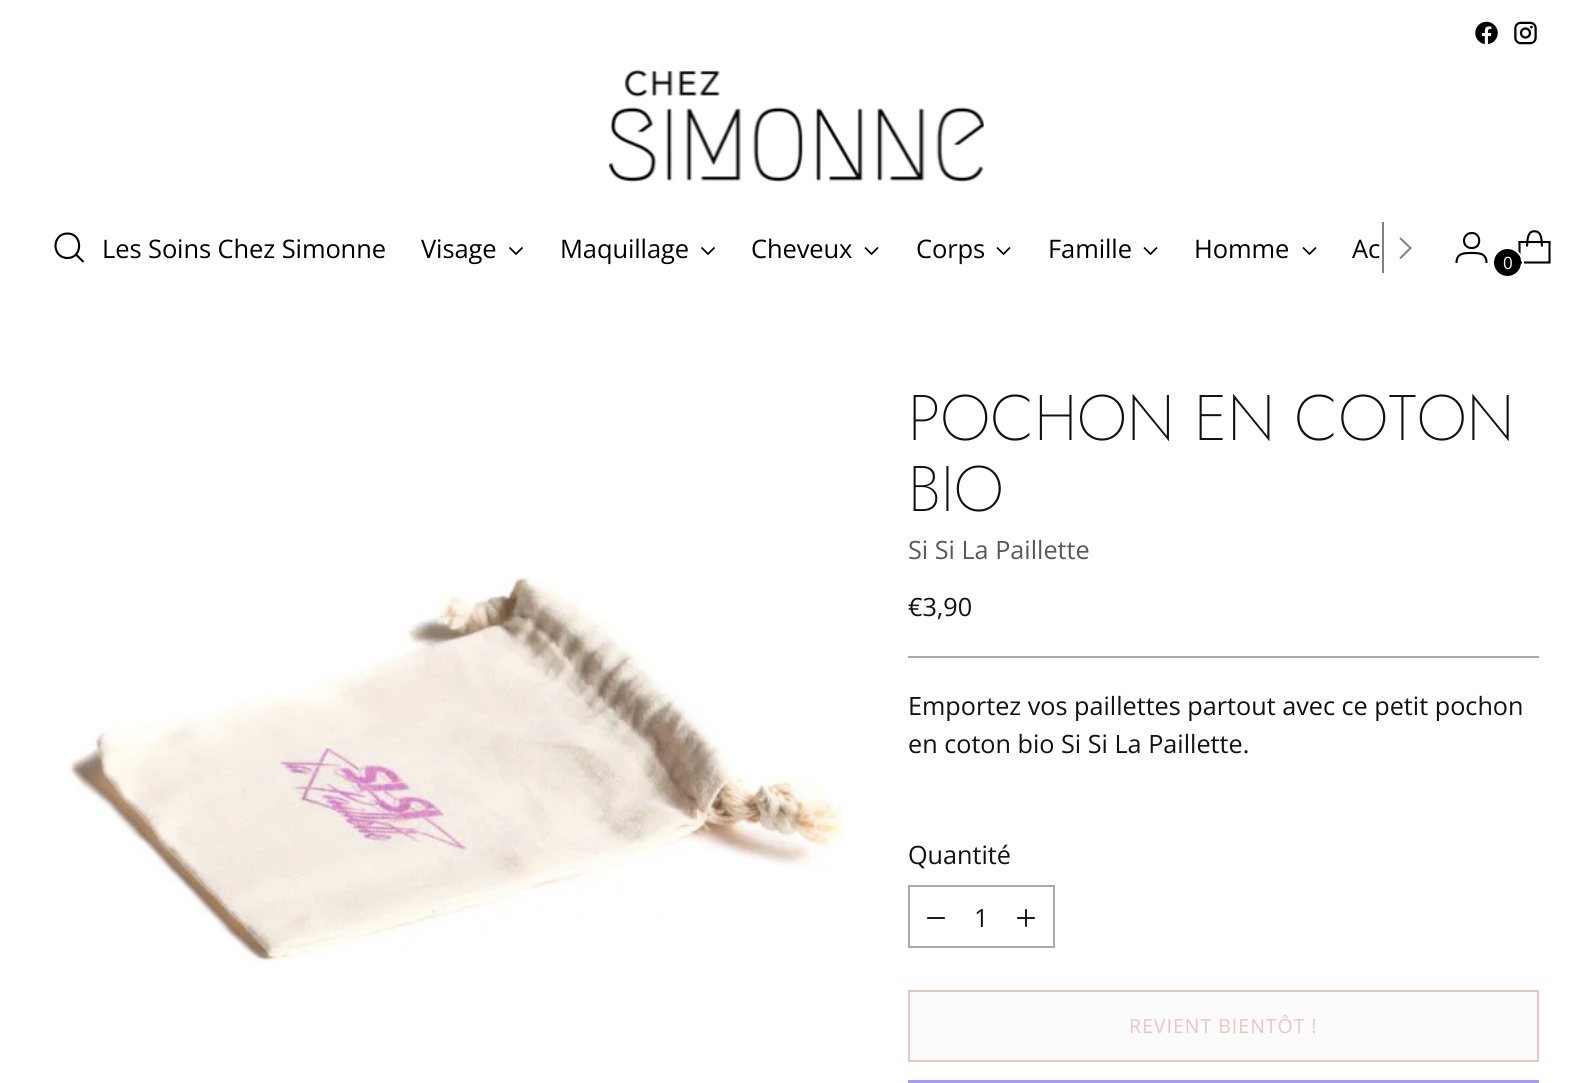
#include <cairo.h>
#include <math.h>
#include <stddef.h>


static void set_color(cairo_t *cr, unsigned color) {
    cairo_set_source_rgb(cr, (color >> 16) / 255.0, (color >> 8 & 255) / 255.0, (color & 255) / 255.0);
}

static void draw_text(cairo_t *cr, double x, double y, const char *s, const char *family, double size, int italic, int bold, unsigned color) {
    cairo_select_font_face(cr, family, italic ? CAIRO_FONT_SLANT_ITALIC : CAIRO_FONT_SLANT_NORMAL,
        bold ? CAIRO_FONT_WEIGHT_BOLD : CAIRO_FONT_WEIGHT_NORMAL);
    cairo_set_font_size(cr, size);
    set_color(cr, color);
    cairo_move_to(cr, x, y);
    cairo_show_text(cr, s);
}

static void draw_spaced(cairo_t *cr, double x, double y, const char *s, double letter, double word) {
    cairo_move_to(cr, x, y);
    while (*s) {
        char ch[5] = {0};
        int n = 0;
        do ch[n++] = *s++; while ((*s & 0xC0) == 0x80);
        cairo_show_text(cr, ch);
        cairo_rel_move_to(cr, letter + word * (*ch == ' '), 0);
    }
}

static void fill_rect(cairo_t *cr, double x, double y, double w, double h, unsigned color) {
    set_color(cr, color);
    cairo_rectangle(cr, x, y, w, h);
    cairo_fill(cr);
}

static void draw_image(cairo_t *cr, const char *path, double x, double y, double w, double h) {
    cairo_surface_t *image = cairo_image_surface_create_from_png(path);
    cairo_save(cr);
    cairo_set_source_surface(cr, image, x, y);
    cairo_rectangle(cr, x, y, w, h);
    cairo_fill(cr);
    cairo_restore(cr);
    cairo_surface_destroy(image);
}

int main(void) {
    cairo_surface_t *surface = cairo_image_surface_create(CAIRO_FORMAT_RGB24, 1591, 1083);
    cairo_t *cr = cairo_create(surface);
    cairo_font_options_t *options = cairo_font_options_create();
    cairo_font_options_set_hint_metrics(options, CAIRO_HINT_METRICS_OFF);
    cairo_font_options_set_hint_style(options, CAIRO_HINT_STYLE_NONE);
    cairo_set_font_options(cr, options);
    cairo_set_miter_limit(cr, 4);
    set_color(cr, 0xFFFFFF);
    cairo_paint(cr);
    draw_image(cr, "assets/img1.png", 1475, 21, 23, 24);
    draw_image(cr, "assets/img2.png", 1514, 21, 23, 24);
    draw_image(cr, "assets/img3.png", 609, 69, 375, 113);
    cairo_new_path(cr);
    cairo_move_to(cr, 67.5, 258);
    cairo_curve_to(cr, 83, 258, 83, 233.5, 67.5, 233.5);
    cairo_curve_to(cr, 51.5, 233.5, 51.5, 258, 67.5, 258);
    cairo_close_path(cr);
    set_color(cr, 0x000000);
    cairo_set_line_width(cr, 2.1);
    cairo_set_line_cap(cr, CAIRO_LINE_CAP_ROUND);
    cairo_stroke(cr);
    cairo_new_path(cr);
    cairo_move_to(cr, 76, 254.5);
    cairo_line_to(cr, 83.5, 262);
    cairo_set_line_cap(cr, CAIRO_LINE_CAP_BUTT);
    cairo_stroke(cr);
    cairo_select_font_face(cr, "Open Sans", CAIRO_FONT_SLANT_NORMAL, CAIRO_FONT_WEIGHT_NORMAL);
    cairo_set_font_size(cr, 25.5);
    draw_spaced(cr, 102, 258, "Les Soins Chez Simonne", -0.1, 0);
    draw_spaced(cr, 421, 258, "Visage", -0.1, 0);
    cairo_new_path(cr);
    cairo_move_to(cr, 509.5, 247.5);
    cairo_line_to(cr, 516, 254);
    cairo_line_to(cr, 522.5, 247.5);
    cairo_set_line_width(cr, 1.7);
    cairo_stroke(cr);
    draw_spaced(cr, 560, 258, "Maquillage", -0.1, 0);
    cairo_new_path(cr);
    cairo_move_to(cr, 701.5, 247.5);
    cairo_line_to(cr, 708, 254);
    cairo_line_to(cr, 714.5, 247.5);
    cairo_stroke(cr);
    draw_spaced(cr, 751, 258, "Cheveux", -0.1, 0);
    cairo_new_path(cr);
    cairo_move_to(cr, 865, 247.5);
    cairo_line_to(cr, 871.5, 254);
    cairo_line_to(cr, 878, 247.5);
    cairo_stroke(cr);
    draw_spaced(cr, 916, 258, "Corps", -0.1, 0);
    cairo_new_path(cr);
    cairo_move_to(cr, 997, 247.5);
    cairo_line_to(cr, 1003.5, 254);
    cairo_line_to(cr, 1010, 247.5);
    cairo_stroke(cr);
    draw_spaced(cr, 1048, 258, "Famille", -0.1, 0);
    cairo_new_path(cr);
    cairo_move_to(cr, 1144, 247.5);
    cairo_line_to(cr, 1150.5, 254);
    cairo_line_to(cr, 1157, 247.5);
    cairo_stroke(cr);
    draw_spaced(cr, 1194, 258, "Homme", -0.1, 0);
    cairo_new_path(cr);
    cairo_move_to(cr, 1303, 247.5);
    cairo_line_to(cr, 1309.5, 254);
    cairo_line_to(cr, 1316, 247.5);
    cairo_stroke(cr);
    draw_spaced(cr, 1352, 258, "Ac", -0.1, 0);
    fill_rect(cr, 1382, 222, 2, 51, 0x808080);
    cairo_new_path(cr);
    cairo_move_to(cr, 1400, 258.5);
    cairo_line_to(cr, 1410.5, 248);
    cairo_line_to(cr, 1400, 238);
    cairo_set_line_width(cr, 2);
    cairo_stroke(cr);
    cairo_new_path(cr);
    cairo_move_to(cr, 1471.5, 248);
    cairo_curve_to(cr, 1482, 248.5, 1481.5, 232.5, 1471.5, 233);
    cairo_curve_to(cr, 1461.5, 233.5, 1461.5, 248, 1471.5, 248);
    cairo_close_path(cr);
    cairo_move_to(cr, 1456.5, 263);
    cairo_curve_to(cr, 1456.5, 253, 1464, 253, 1471.5, 253);
    cairo_curve_to(cr, 1479, 253, 1486.5, 253, 1486.5, 263);
    set_color(cr, 0x000000);
    cairo_set_line_width(cr, 2.1);
    cairo_stroke(cr);
    cairo_new_path(cr);
    cairo_move_to(cr, 1542, 246.5);
    cairo_curve_to(cr, 1541.5, 243, 1542, 239, 1540.5, 235.5);
    cairo_curve_to(cr, 1540, 233.5, 1538, 231.5, 1536, 231.5);
    cairo_curve_to(cr, 1527, 229.5, 1527.5, 241, 1527, 246.5);
    cairo_set_line_join(cr, CAIRO_LINE_JOIN_BEVEL);
    cairo_stroke(cr);
    cairo_new_path(cr);
    cairo_move_to(cr, 1549.5, 262.5);
    cairo_line_to(cr, 1549.5, 242);
    cairo_line_to(cr, 1519.5, 242);
    cairo_line_to(cr, 1519.5, 262.5);
    cairo_close_path(cr);
    cairo_set_line_join(cr, CAIRO_LINE_JOIN_MITER);
    cairo_stroke(cr);
    cairo_arc(cr, 1508.5, 263.5, 14.5, 0, 2 * M_PI);
    set_color(cr, 0xFFFFFF);
    cairo_set_line_width(cr, 2);
    cairo_stroke(cr);
    set_color(cr, 0x000000);
    cairo_arc(cr, 1507.5, 262.5, 13.5, 0, 2 * M_PI);
    cairo_fill(cr);
    draw_text(cr, 1503, 269, "0", "Open Sans", 17, 0, 0, 0xFFFFFF);
    draw_image(cr, "assets/img4.png", 69, 576, 775, 387);
    fill_rect(cr, 908, 656, 631, 2, 0xAAAAAA);
    draw_text(cr, 908, 440, "POCHON EN COTON", "Jost ExtraLight", 64.25, 0, 0, 0x111111);
    draw_text(cr, 908, 511, "BIO", "Jost ExtraLight", 64.25, 0, 0, 0x111111);
    draw_text(cr, 908, 559, "Si Si La Paillette", "Open Sans", 25.2, 0, 0, 0x585858);
    draw_text(cr, 908, 616, "€3,90", "Open Sans", 25.2, 0, 0, 0x111111);
    draw_text(cr, 908, 715, "Emportez vos paillettes partout avec ce petit pochon", "Open Sans", 25.2, 0, 0, 0x111111);
    draw_text(cr, 908, 753, "en coton bio Si Si La Paillette.", "Open Sans", 25.2, 0, 0, 0x111111);
    draw_text(cr, 908, 864, "Quantité", "Open Sans", 25.2, 0, 0, 0x111111);
    cairo_rectangle(cr, 909, 886, 145, 61);
    set_color(cr, 0xAAAAAA);
    cairo_stroke(cr);
    draw_image(cr, "assets/img5.png", 927, 917, 18, 2);
    draw_text(cr, 974, 927, "1", "Open Sans", 25.2, 0, 0, 0x111111);
    draw_image(cr, "assets/img6.png", 1017, 909, 18, 18);
    set_color(cr, 0xFBFBFB);
    cairo_rectangle(cr, 909, 991, 629, 70);
    cairo_fill_preserve(cr);
    set_color(cr, 0xE5C8C2);
    cairo_stroke(cr);
    cairo_set_font_size(cr, 19.5);
    draw_spaced(cr, 1129, 1033, "REVIENT BIENTÔT !", 1, 0);
    fill_rect(cr, 908, 1080, 631, 3, 0xAA99F5);
    cairo_surface_write_to_png(surface, "output.png");
    cairo_font_options_destroy(options);
    cairo_destroy(cr);
    cairo_surface_destroy(surface);
    return 0;
}
